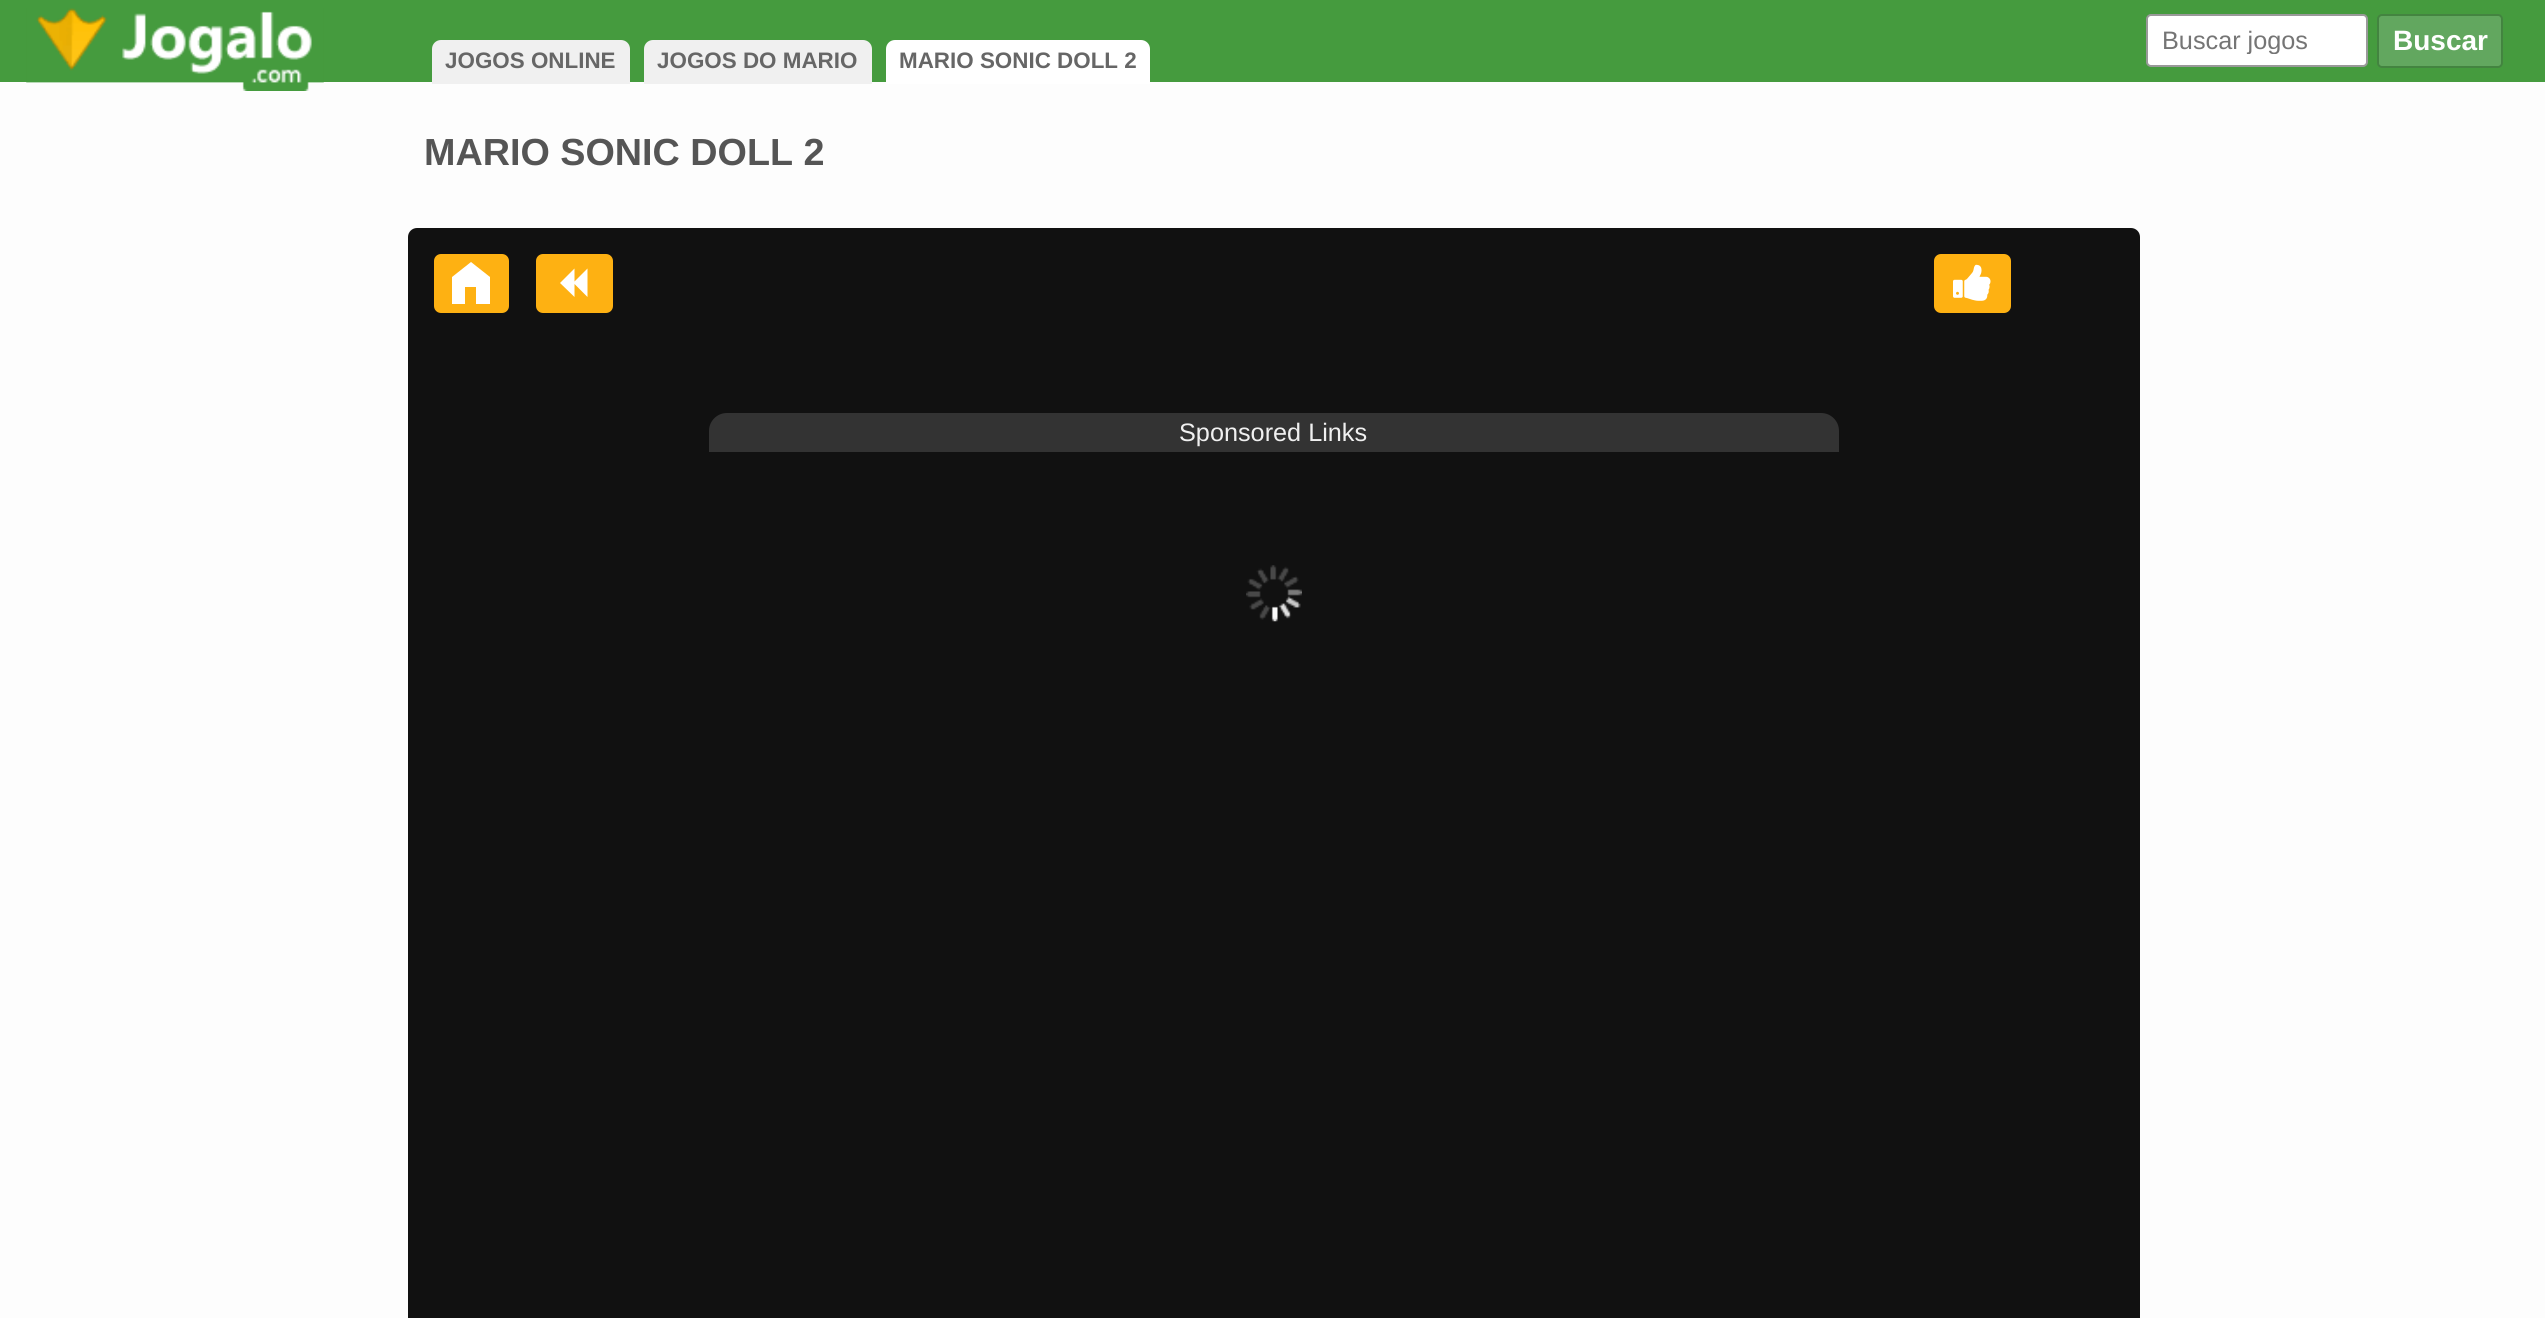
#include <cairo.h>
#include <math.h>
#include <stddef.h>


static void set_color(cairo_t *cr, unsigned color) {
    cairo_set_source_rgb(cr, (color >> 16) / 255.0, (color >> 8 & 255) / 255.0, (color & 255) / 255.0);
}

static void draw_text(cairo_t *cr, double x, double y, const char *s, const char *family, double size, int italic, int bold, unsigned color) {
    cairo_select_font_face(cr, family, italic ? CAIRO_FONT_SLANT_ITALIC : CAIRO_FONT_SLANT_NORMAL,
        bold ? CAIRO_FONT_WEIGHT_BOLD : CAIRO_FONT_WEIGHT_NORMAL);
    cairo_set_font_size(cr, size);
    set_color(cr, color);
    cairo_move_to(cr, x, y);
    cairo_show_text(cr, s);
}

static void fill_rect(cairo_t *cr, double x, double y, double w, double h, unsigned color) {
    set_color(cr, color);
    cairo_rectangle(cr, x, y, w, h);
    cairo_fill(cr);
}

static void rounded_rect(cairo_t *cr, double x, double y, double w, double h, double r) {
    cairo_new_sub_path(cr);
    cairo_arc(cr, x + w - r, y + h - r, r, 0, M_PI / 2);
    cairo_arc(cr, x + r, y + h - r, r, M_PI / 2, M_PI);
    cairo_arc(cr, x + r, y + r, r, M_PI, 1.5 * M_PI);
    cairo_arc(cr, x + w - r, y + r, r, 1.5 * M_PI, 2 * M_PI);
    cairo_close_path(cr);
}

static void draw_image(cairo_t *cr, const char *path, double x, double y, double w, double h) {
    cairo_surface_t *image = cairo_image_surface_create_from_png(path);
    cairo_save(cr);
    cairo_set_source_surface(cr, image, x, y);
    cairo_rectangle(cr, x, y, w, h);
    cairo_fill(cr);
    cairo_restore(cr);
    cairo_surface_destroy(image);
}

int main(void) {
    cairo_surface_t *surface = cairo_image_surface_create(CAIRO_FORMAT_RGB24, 2545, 1318);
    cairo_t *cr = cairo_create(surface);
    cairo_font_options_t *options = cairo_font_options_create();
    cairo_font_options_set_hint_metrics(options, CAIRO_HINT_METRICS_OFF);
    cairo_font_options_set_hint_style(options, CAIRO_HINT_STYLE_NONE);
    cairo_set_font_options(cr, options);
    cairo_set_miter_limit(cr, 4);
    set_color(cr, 0xFDFDFD);
    cairo_paint(cr);
    fill_rect(cr, 0, 0, 2545, 82, 0x459B3E);
    draw_image(cr, "assets/img1.png", 26, 8, 298, 83);
    set_color(cr, 0xFFFFFF);
    rounded_rect(cr, 2147, 15, 220, 51, 4);
    cairo_fill_preserve(cr);
    set_color(cr, 0x999999);
    cairo_stroke(cr);
    cairo_save(cr);
    cairo_rectangle(cr, 2161, 26, 202, 28);
    cairo_clip(cr);
    draw_text(cr, 2162, 49, "Buscar jogos", "Liberation Sans", 25.25, 0, 0, 0x757575);
    cairo_restore(cr);
    set_color(cr, 0x62A75F);
    rounded_rect(cr, 2378, 15, 124, 52, 4);
    cairo_fill_preserve(cr);
    set_color(cr, 0x438440);
    cairo_stroke(cr);
    draw_text(cr, 2393, 50, "Buscar", "Liberation Sans", 28, 0, 1, 0xFFFFFF);
    set_color(cr, 0xF0F0F0);
    cairo_new_path(cr);
    cairo_move_to(cr, 441, 40);
    cairo_line_to(cr, 621, 40);
    cairo_curve_to(cr, 626, 40, 630, 44, 630, 49);
    cairo_line_to(cr, 630, 84);
    cairo_line_to(cr, 432, 84);
    cairo_line_to(cr, 432, 49);
    cairo_curve_to(cr, 432, 44, 436, 40, 441, 40);
    cairo_close_path(cr);
    cairo_fill(cr);
    draw_text(cr, 445, 68, "JOGOS ONLINE", "Liberation Sans", 22.4, 0, 1, 0x666666);
    set_color(cr, 0xF0F0F0);
    cairo_new_path(cr);
    cairo_move_to(cr, 653, 40);
    cairo_line_to(cr, 863, 40);
    cairo_curve_to(cr, 868, 40, 872, 44, 872, 49);
    cairo_line_to(cr, 872, 84);
    cairo_line_to(cr, 644, 84);
    cairo_line_to(cr, 644, 49);
    cairo_curve_to(cr, 644, 44, 648, 40, 653, 40);
    cairo_close_path(cr);
    cairo_fill(cr);
    draw_text(cr, 657, 68, "JOGOS DO MARIO", "Liberation Sans", 22.4, 0, 1, 0x666666);
    set_color(cr, 0xFFFFFF);
    cairo_new_path(cr);
    cairo_move_to(cr, 895, 40);
    cairo_line_to(cr, 1141, 40);
    cairo_curve_to(cr, 1146, 40, 1150, 44, 1150, 49);
    cairo_line_to(cr, 1150, 84);
    cairo_line_to(cr, 886, 84);
    cairo_line_to(cr, 886, 49);
    cairo_curve_to(cr, 886, 44, 890, 40, 895, 40);
    cairo_close_path(cr);
    cairo_fill(cr);
    draw_text(cr, 899, 68, "MARIO SONIC DOLL 2", "Liberation Sans", 22.4, 0, 1, 0x666666);
    draw_text(cr, 424, 165, "MARIO SONIC DOLL 2", "Liberation Sans", 37.75, 0, 1, 0x555555);
    set_color(cr, 0x111111);
    rounded_rect(cr, 408, 228, 1732, 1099, 9);
    cairo_fill(cr);
    set_color(cr, 0xFEB112);
    rounded_rect(cr, 434, 254, 75, 59, 7);
    cairo_fill(cr);
    set_color(cr, 0xFFFFFF);
    cairo_new_path(cr);
    cairo_move_to(cr, 452, 304);
    cairo_line_to(cr, 452, 277);
    cairo_line_to(cr, 471, 262);
    cairo_line_to(cr, 490, 277);
    cairo_line_to(cr, 490, 304);
    cairo_line_to(cr, 476, 304);
    cairo_line_to(cr, 476, 287);
    cairo_line_to(cr, 465, 287);
    cairo_line_to(cr, 465, 304);
    cairo_close_path(cr);
    cairo_fill(cr);
    set_color(cr, 0xFEB112);
    rounded_rect(cr, 536, 254, 77, 59, 7);
    cairo_fill(cr);
    set_color(cr, 0xFFFFFF);
    cairo_new_path(cr);
    cairo_move_to(cr, 560, 283);
    cairo_line_to(cr, 574.5, 268.5);
    cairo_line_to(cr, 574.5, 281.5);
    cairo_line_to(cr, 587.5, 268.5);
    cairo_line_to(cr, 587.5, 297);
    cairo_line_to(cr, 574.5, 284);
    cairo_line_to(cr, 574.5, 297);
    cairo_close_path(cr);
    cairo_fill(cr);
    set_color(cr, 0xFEB112);
    rounded_rect(cr, 1934, 254, 77, 59, 7);
    cairo_fill(cr);
    draw_image(cr, "assets/img2.png", 1953, 264, 38, 37);
    set_color(cr, 0x333333);
    cairo_new_path(cr);
    cairo_move_to(cr, 727, 413);
    cairo_line_to(cr, 1821, 413);
    cairo_curve_to(cr, 1831, 413, 1839, 421, 1839, 431);
    cairo_line_to(cr, 1839, 452);
    cairo_line_to(cr, 709, 452);
    cairo_line_to(cr, 709, 431);
    cairo_curve_to(cr, 709, 421, 717, 413, 727, 413);
    cairo_close_path(cr);
    cairo_fill(cr);
    draw_text(cr, 1179, 441, "Sponsored Links", "Liberation Sans", 25.25, 0, 0, 0xF0F0F0);
    draw_image(cr, "assets/img3.png", 1246, 565, 56, 57);
    cairo_surface_write_to_png(surface, "output.png");
    cairo_font_options_destroy(options);
    cairo_destroy(cr);
    cairo_surface_destroy(surface);
    return 0;
}
